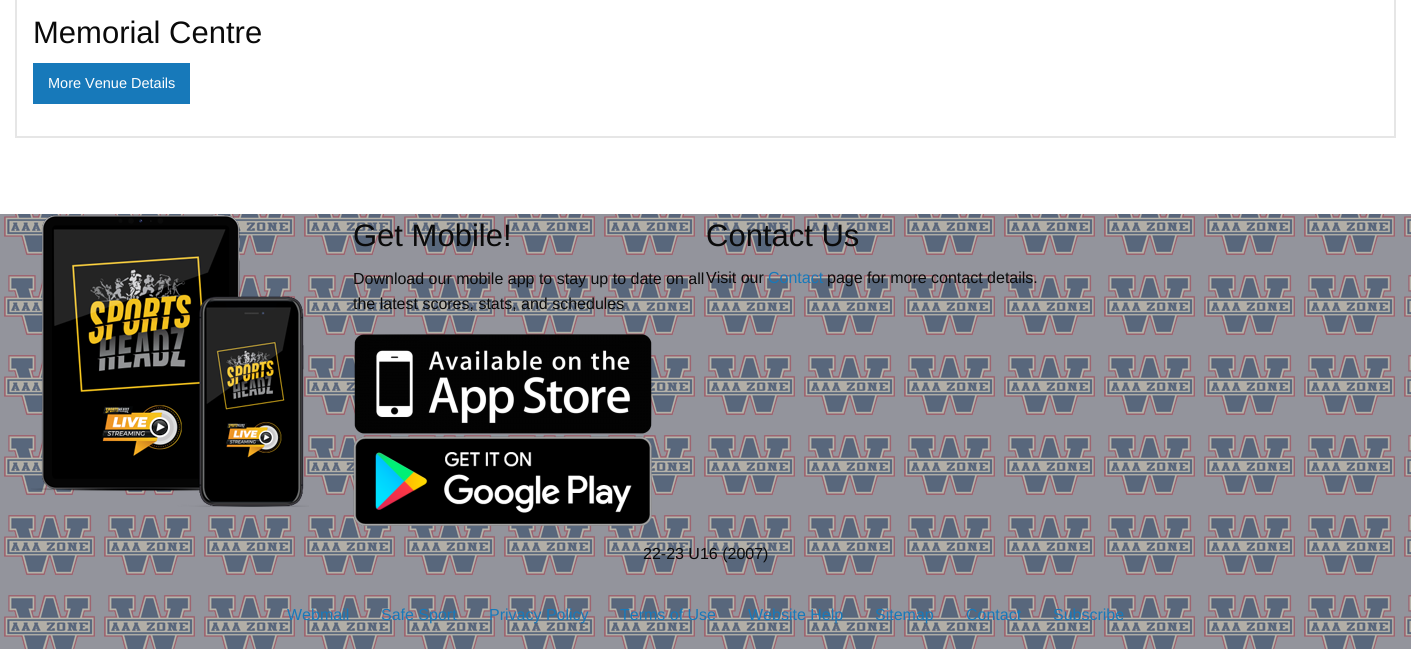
#include <cairo.h>
#include <math.h>
#include <stddef.h>


static void set_color(cairo_t *cr, unsigned color) {
    cairo_set_source_rgb(cr, (color >> 16) / 255.0, (color >> 8 & 255) / 255.0, (color & 255) / 255.0);
}

static void draw_text(cairo_t *cr, double x, double y, const char *s, const char *family, double size, int italic, int bold, unsigned color) {
    cairo_select_font_face(cr, family, italic ? CAIRO_FONT_SLANT_ITALIC : CAIRO_FONT_SLANT_NORMAL,
        bold ? CAIRO_FONT_WEIGHT_BOLD : CAIRO_FONT_WEIGHT_NORMAL);
    cairo_set_font_size(cr, size);
    set_color(cr, color);
    cairo_move_to(cr, x, y);
    cairo_show_text(cr, s);
}

static void fill_rect(cairo_t *cr, double x, double y, double w, double h, unsigned color) {
    set_color(cr, color);
    cairo_rectangle(cr, x, y, w, h);
    cairo_fill(cr);
}

static void draw_image(cairo_t *cr, const char *path, double x, double y, double w, double h) {
    cairo_surface_t *image = cairo_image_surface_create_from_png(path);
    cairo_save(cr);
    cairo_set_source_surface(cr, image, x, y);
    cairo_rectangle(cr, x, y, w, h);
    cairo_fill(cr);
    cairo_restore(cr);
    cairo_surface_destroy(image);
}

int main(void) {
    cairo_surface_t *surface = cairo_image_surface_create(CAIRO_FORMAT_RGB24, 1411, 649);
    cairo_t *cr = cairo_create(surface);
    cairo_font_options_t *options = cairo_font_options_create();
    cairo_font_options_set_hint_metrics(options, CAIRO_HINT_METRICS_OFF);
    cairo_font_options_set_hint_style(options, CAIRO_HINT_STYLE_NONE);
    cairo_set_font_options(cr, options);
    cairo_set_miter_limit(cr, 4);
    set_color(cr, 0x93949C);
    cairo_paint(cr);
    draw_image(cr, "assets/img1.png", 4, 214, 1407, 435);
    fill_rect(cr, 0, 0, 1411, 214, 0xFFFFFF);
    cairo_rectangle(cr, 15.5, -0.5, 1380, 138);
    set_color(cr, 0xE6E6E6);
    cairo_set_line_width(cr, 1);
    cairo_stroke(cr);
    fill_rect(cr, 1394, 0, 1, 137, 0xE6E6E6);
    fill_rect(cr, 16, 136, 1379, 1, 0xE6E6E6);
    fill_rect(cr, 16, 0, 1, 137, 0xE6E6E6);
    draw_text(cr, 33, 43, "Memorial Centre", "Liberation Sans", 31, 0, 0, 0x0A0A0A);
    fill_rect(cr, 33, 63, 157, 41, 0x1779BA);
    draw_text(cr, 48, 88, "More Venue Details", "Liberation Sans", 14.5, 0, 0, 0xFEFEFE);
    draw_image(cr, "assets/img2.png", 31, 214, 278, 293);
    draw_text(cr, 353, 246, "Get Mobile!", "Liberation Sans", 31, 0, 0, 0x0A0A0A);
    draw_text(cr, 353, 284, "Download our mobile app to stay up to date on all", "Liberation Sans", 16, 0, 0, 0x0A0A0A);
    draw_text(cr, 353, 309, "the latest scores, stats, and schedules", "Liberation Sans", 16, 0, 0, 0x0A0A0A);
    draw_image(cr, "assets/img3.png", 354, 334, 298, 100);
    draw_image(cr, "assets/img4.png", 353, 436, 299, 90);
    draw_text(cr, 706, 246, "Contact Us", "Liberation Sans", 31, 0, 0, 0x0A0A0A);
    draw_text(cr, 706, 283, "Visit our", "Liberation Sans", 16, 0, 0, 0x0A0A0A);
    draw_text(cr, 768, 283, "Contact", "Liberation Sans", 16, 0, 0, 0x1779BA);
    draw_text(cr, 827, 283, "page for more contact details.", "Liberation Sans", 16, 0, 0, 0x0A0A0A);
    draw_text(cr, 643, 559, "22-23 U16 (2007)", "Liberation Sans", 16, 0, 0, 0x0A0A0A);
    draw_text(cr, 287, 620, "Webmail", "Liberation Sans", 16, 0, 0, 0x1779BA);
    draw_text(cr, 381, 620, "Safe Sport", "Liberation Sans", 16, 0, 0, 0x1779BA);
    draw_text(cr, 489, 620, "Privacy Policy", "Liberation Sans", 16, 0, 0, 0x1779BA);
    draw_text(cr, 620, 620, "Terms of Use", "Liberation Sans", 16, 0, 0, 0x1779BA);
    draw_text(cr, 748, 620, "Website Help", "Liberation Sans", 16, 0, 0, 0x1779BA);
    draw_text(cr, 875, 620, "Sitemap", "Liberation Sans", 16, 0, 0, 0x1779BA);
    draw_text(cr, 966, 620, "Contact", "Liberation Sans", 16, 0, 0, 0x1779BA);
    draw_text(cr, 1053, 620, "Subscribe", "Liberation Sans", 16, 0, 0, 0x1779BA);
    cairo_surface_write_to_png(surface, "output.png");
    cairo_font_options_destroy(options);
    cairo_destroy(cr);
    cairo_surface_destroy(surface);
    return 0;
}
